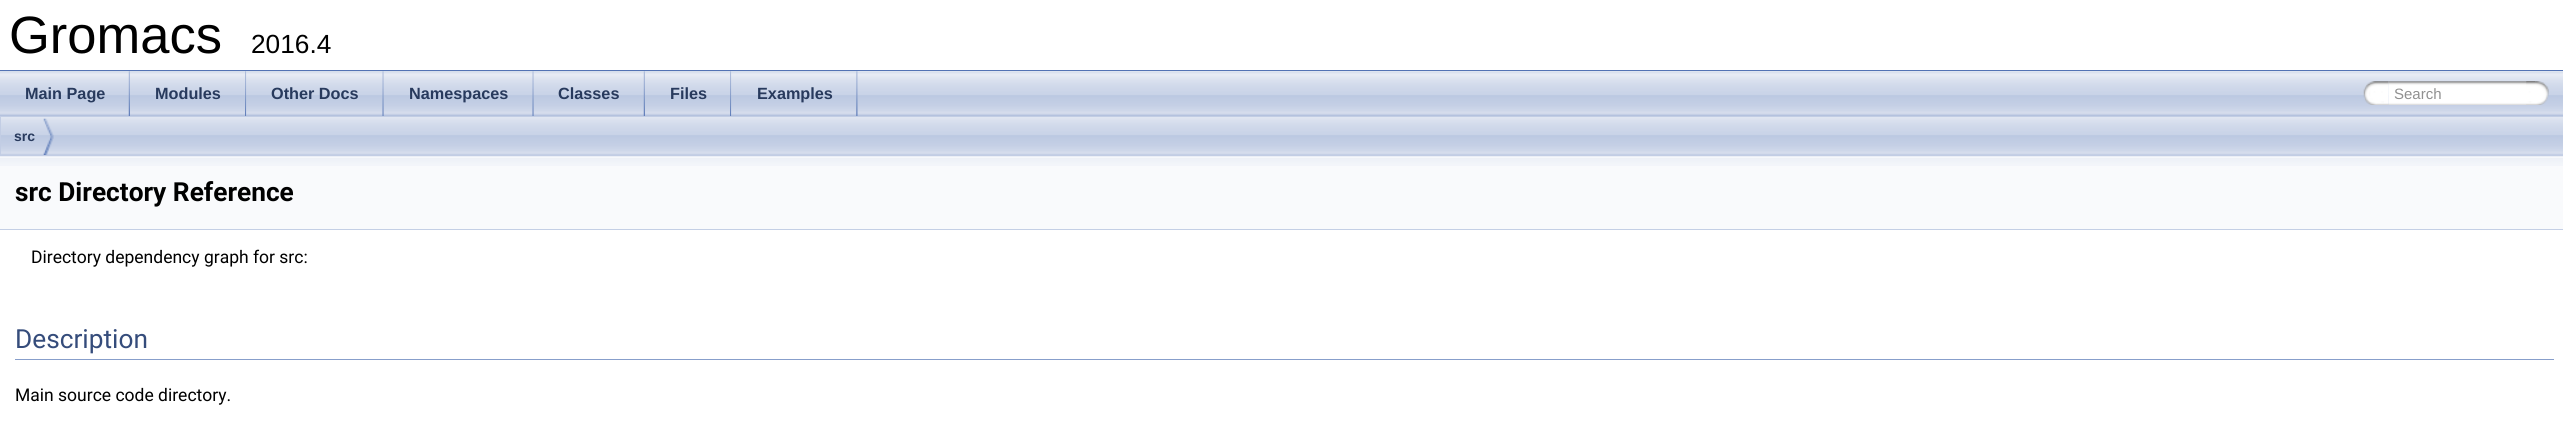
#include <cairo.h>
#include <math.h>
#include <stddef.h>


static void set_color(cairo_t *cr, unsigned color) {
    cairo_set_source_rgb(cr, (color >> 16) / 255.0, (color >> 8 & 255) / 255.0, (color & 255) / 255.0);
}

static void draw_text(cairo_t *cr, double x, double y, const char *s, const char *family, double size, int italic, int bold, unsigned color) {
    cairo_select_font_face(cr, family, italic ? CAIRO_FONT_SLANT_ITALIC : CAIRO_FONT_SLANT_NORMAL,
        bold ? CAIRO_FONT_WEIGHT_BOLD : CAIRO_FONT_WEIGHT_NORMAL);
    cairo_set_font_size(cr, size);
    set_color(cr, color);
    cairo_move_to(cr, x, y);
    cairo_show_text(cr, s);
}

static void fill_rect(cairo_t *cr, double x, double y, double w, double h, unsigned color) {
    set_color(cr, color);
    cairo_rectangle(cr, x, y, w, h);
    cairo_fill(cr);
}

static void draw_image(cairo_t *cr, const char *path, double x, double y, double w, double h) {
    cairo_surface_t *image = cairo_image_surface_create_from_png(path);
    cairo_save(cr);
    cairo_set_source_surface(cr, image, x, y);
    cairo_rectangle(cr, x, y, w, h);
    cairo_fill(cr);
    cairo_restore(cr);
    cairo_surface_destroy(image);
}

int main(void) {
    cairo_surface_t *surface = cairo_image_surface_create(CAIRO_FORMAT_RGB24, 2563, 428);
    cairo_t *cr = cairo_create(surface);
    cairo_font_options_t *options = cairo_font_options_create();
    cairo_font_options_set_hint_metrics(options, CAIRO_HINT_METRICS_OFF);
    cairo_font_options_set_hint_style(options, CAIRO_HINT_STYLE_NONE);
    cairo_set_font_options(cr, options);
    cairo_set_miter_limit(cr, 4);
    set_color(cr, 0xFFFFFF);
    cairo_paint(cr);
    fill_rect(cr, 0, 70, 2563, 1, 0x5373B4);
    draw_text(cr, 9, 53, "Gromacs", "Liberation Sans", 52.5, 0, 0, 0x000000);
    draw_text(cr, 251, 53, "2016.4", "Liberation Sans", 26.25, 0, 0, 0x000000);
    draw_image(cr, "assets/img1.png", 0, 71, 2563, 45);
    draw_image(cr, "assets/img2.png", 0, 71, 130, 45);
    draw_image(cr, "assets/img3.png", 128, 71, 2, 45);
    draw_text(cr, 25, 99, "Main Page", "Liberation Sans", 16.25, 0, 1, 0x283A5D);
    draw_image(cr, "assets/img4.png", 130, 71, 116, 45);
    draw_image(cr, "assets/img5.png", 245, 71, 2, 45);
    draw_text(cr, 155, 99, "Modules", "Liberation Sans", 16.25, 0, 1, 0x283A5D);
    draw_image(cr, "assets/img6.png", 246, 71, 138, 45);
    draw_image(cr, "assets/img7.png", 382, 71, 2, 45);
    draw_text(cr, 271, 99, "Other Docs", "Liberation Sans", 16.25, 0, 1, 0x283A5D);
    draw_image(cr, "assets/img8.png", 383, 71, 151, 45);
    draw_image(cr, "assets/img7.png", 532, 71, 2, 45);
    draw_text(cr, 409, 99, "Namespaces", "Liberation Sans", 16.25, 0, 1, 0x283A5D);
    draw_image(cr, "assets/img9.png", 533, 71, 112, 45);
    draw_image(cr, "assets/img3.png", 643, 71, 2, 45);
    draw_text(cr, 558, 99, "Classes", "Liberation Sans", 16.25, 0, 1, 0x283A5D);
    draw_image(cr, "assets/img10.png", 645, 71, 86, 45);
    draw_image(cr, "assets/img5.png", 730, 71, 2, 45);
    draw_text(cr, 670, 99, "Files", "Liberation Sans", 16.25, 0, 1, 0x283A5D);
    draw_image(cr, "assets/img11.png", 731, 71, 127, 45);
    draw_image(cr, "assets/img12.png", 856, 71, 2, 45);
    draw_text(cr, 757, 99, "Examples", "Liberation Sans", 16.25, 0, 1, 0x283A5D);
    draw_image(cr, "assets/img13.png", 2363, 81, 26, 24);
    draw_image(cr, "assets/img14.png", 2388, 81, 147, 24);
    draw_text(cr, 2394, 99, "Search", "Liberation Sans", 15, 0, 0, 0x909090);
    draw_image(cr, "assets/img15.png", 2526, 81, 23, 24);
    fill_rect(cr, 0, 156, 2563, 73, 0xF9FAFC);
    draw_image(cr, "assets/img18.png", 0, 156, 2563, 10);
    draw_image(cr, "assets/img16.png", 0, 117, 2563, 40);
    cairo_rectangle(cr, 0.5, 116.5, 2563, 39);
    set_color(cr, 0xC2CDE4);
    cairo_set_line_width(cr, 1);
    cairo_stroke(cr);
    draw_image(cr, "assets/img17.png", 43, 118, 11, 37);
    draw_text(cr, 14, 141, "src", "Liberation Sans", 14, 0, 1, 0x283A5D);
    fill_rect(cr, 0, 229, 2563, 1, 0xC4CFE5);
    draw_text(cr, 15, 201, "src Directory Reference", "Roboto", 26.25, 0, 1, 0x000000);
    draw_text(cr, 31, 263, "Directory dependency graph for src:", "Roboto", 17.5, 0, 0, 0x000000);
    fill_rect(cr, 15, 359, 2539, 1, 0x879ECB);
    draw_text(cr, 15, 348, "Description", "Roboto", 26.25, 0, 0, 0x354C7B);
    draw_text(cr, 15, 401, "Main source code directory.", "Roboto", 17.5, 0, 0, 0x000000);
    cairo_surface_write_to_png(surface, "output.png");
    cairo_font_options_destroy(options);
    cairo_destroy(cr);
    cairo_surface_destroy(surface);
    return 0;
}
